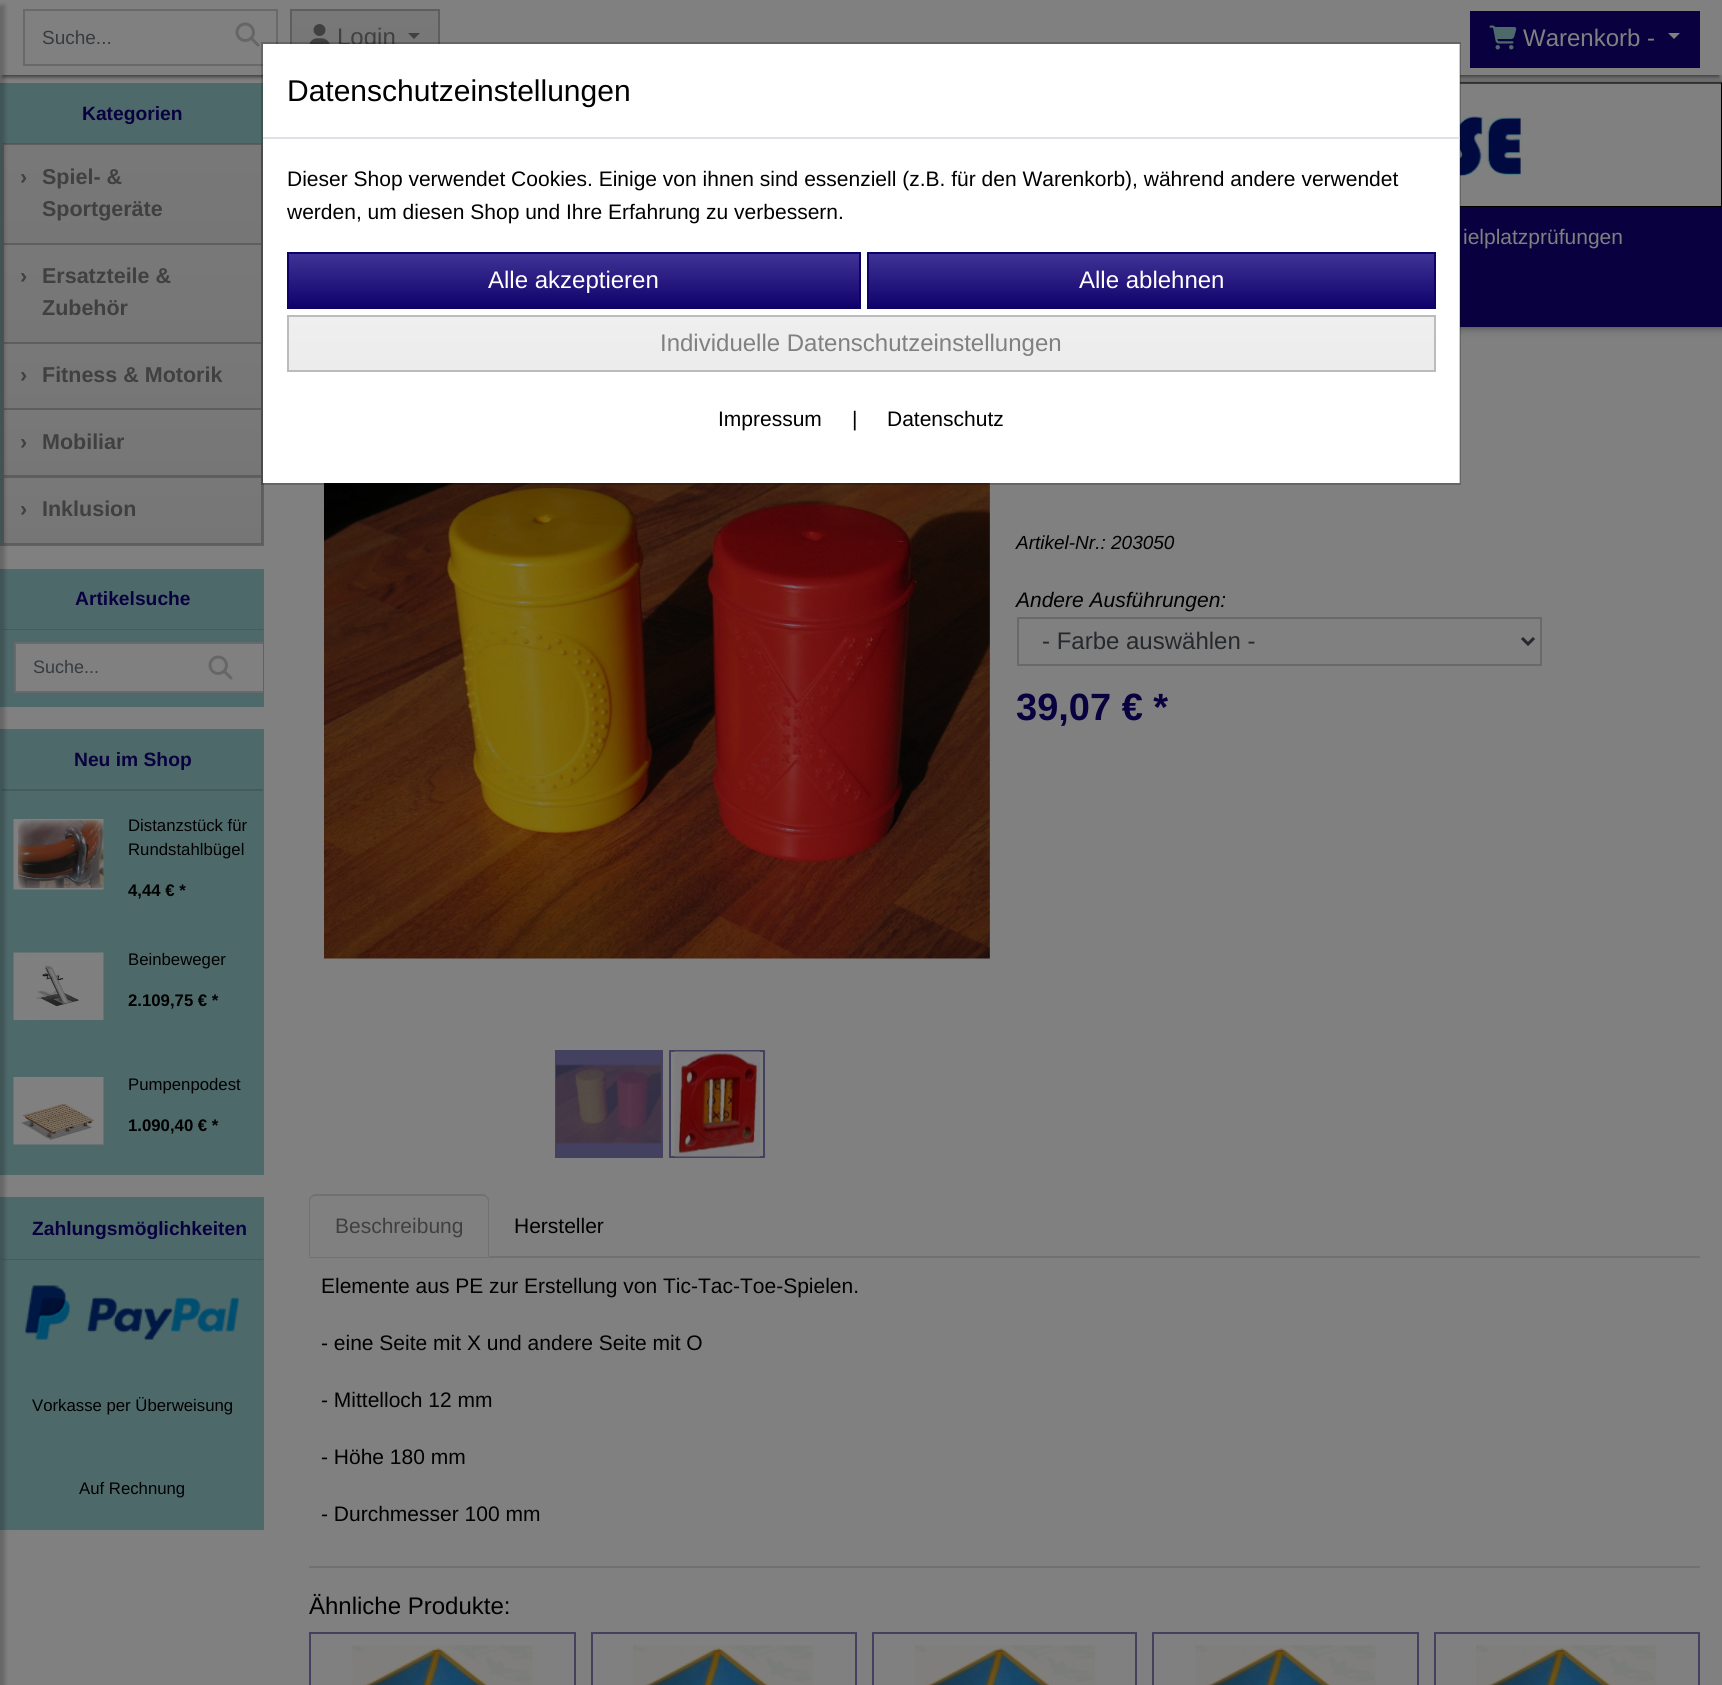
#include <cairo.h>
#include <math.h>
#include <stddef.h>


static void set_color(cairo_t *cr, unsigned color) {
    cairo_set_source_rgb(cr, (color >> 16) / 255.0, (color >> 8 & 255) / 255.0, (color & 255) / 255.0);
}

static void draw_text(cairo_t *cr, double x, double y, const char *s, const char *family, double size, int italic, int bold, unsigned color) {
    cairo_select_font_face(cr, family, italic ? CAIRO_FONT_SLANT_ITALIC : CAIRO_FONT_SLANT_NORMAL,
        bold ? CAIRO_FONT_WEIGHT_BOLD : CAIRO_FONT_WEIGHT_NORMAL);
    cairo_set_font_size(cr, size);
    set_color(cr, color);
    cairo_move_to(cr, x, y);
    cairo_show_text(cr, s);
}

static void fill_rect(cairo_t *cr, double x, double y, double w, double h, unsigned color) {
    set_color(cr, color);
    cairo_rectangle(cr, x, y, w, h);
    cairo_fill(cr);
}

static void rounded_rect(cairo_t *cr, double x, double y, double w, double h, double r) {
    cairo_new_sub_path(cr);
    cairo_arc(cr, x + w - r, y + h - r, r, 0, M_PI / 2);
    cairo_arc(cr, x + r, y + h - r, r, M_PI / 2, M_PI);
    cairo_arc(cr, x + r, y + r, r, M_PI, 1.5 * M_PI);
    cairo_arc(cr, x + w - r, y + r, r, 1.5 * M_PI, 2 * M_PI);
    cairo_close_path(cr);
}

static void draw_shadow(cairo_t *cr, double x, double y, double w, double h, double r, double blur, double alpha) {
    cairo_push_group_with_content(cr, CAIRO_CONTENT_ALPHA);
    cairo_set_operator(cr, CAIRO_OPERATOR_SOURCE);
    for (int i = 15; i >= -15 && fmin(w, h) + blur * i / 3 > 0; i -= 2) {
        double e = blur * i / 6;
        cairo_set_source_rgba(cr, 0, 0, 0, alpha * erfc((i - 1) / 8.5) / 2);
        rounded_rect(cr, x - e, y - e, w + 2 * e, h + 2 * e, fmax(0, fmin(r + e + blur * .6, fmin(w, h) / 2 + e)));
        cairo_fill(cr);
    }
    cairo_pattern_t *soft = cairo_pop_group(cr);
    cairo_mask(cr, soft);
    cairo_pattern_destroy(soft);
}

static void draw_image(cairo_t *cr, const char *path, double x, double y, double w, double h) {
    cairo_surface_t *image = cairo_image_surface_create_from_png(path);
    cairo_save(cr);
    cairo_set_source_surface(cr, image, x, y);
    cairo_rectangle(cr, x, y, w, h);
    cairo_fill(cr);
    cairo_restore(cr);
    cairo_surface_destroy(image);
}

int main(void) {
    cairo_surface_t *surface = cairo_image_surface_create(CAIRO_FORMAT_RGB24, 1722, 1685);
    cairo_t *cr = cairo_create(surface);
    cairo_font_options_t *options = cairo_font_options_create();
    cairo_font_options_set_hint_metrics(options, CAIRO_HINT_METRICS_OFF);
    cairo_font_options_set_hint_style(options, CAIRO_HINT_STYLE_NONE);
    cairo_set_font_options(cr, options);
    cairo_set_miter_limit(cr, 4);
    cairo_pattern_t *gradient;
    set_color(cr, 0x808080);
    cairo_paint(cr);
    cairo_rectangle(cr, 1, 84, 262, 461);
    set_color(cr, 0x4E696A);
    cairo_stroke(cr);
    set_color(cr, 0x000000);
    draw_shadow(cr, 288, 83, 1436, 124, 0, 4.5, 0.5);
    draw_shadow(cr, 288, 207, 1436, 120, 0, 4.5, 0.5);
    draw_image(cr, "assets/img8.png", 1460, 82, 262, 125);
    set_color(cr, 0x3C3C3C);
    draw_shadow(cr, 3, 8, 1716, 69, 0, 2, 1);
    fill_rect(cr, 0, 4, 1722, 71, 0x808080);
    fill_rect(cr, 2, 85, 260, 59, 0x4E696A);
    cairo_set_source_rgba(cr, 0, 0, 0, 0.12);
    cairo_rectangle(cr, 2, 143, 261, 1);
    cairo_fill(cr);
    gradient = cairo_pattern_create_linear(132, 144, 132, 243);
    cairo_pattern_add_color_stop_rgba(gradient, 0, 0.471, 0.471, 0.471, 1);
    cairo_pattern_add_color_stop_rgba(gradient, 1, 0.463, 0.463, 0.463, 1);
    cairo_set_source(cr, gradient);
    cairo_pattern_destroy(gradient);
    cairo_rectangle(cr, 4, 145, 257, 98);
    cairo_fill(cr);
    cairo_save(cr);
    cairo_rectangle(cr, 2, 144, 261, 401);
    cairo_clip(cr);
    cairo_rectangle(cr, 3, 144, 259, 100);
    set_color(cr, 0x5E5E5E);
    cairo_stroke(cr);
    cairo_restore(cr);
    gradient = cairo_pattern_create_linear(132, 245, 132, 342);
    cairo_pattern_add_color_stop_rgba(gradient, 0, 0.471, 0.471, 0.471, 1);
    cairo_pattern_add_color_stop_rgba(gradient, 1, 0.463, 0.463, 0.463, 1);
    cairo_set_source(cr, gradient);
    cairo_pattern_destroy(gradient);
    cairo_rectangle(cr, 4, 245, 257, 97);
    cairo_fill(cr);
    cairo_rectangle(cr, 3, 244, 259, 99);
    set_color(cr, 0x5E5E5E);
    cairo_stroke(cr);
    gradient = cairo_pattern_create_linear(132, 344, 132, 408);
    cairo_pattern_add_color_stop_rgba(gradient, 0, 0.471, 0.471, 0.471, 1);
    cairo_pattern_add_color_stop_rgba(gradient, 1, 0.463, 0.463, 0.463, 1);
    cairo_set_source(cr, gradient);
    cairo_pattern_destroy(gradient);
    cairo_rectangle(cr, 4, 344, 257, 64);
    cairo_fill(cr);
    cairo_rectangle(cr, 3, 343, 259, 66);
    set_color(cr, 0x5E5E5E);
    cairo_stroke(cr);
    gradient = cairo_pattern_create_linear(132, 410, 132, 476);
    cairo_pattern_add_color_stop_rgba(gradient, 0, 0.471, 0.471, 0.471, 1);
    cairo_pattern_add_color_stop_rgba(gradient, 1, 0.463, 0.463, 0.463, 1);
    cairo_set_source(cr, gradient);
    cairo_pattern_destroy(gradient);
    cairo_rectangle(cr, 4, 410, 257, 65);
    cairo_fill(cr);
    cairo_rectangle(cr, 3, 409, 259, 67);
    set_color(cr, 0x5E5E5E);
    cairo_stroke(cr);
    gradient = cairo_pattern_create_linear(132, 477, 132, 543);
    cairo_pattern_add_color_stop_rgba(gradient, 0, 0.471, 0.471, 0.471, 1);
    cairo_pattern_add_color_stop_rgba(gradient, 1, 0.463, 0.463, 0.463, 1);
    cairo_set_source(cr, gradient);
    cairo_pattern_destroy(gradient);
    cairo_rectangle(cr, 4, 478, 257, 65);
    cairo_fill(cr);
    cairo_rectangle(cr, 3, 477, 259, 67);
    set_color(cr, 0x5E5E5E);
    cairo_stroke(cr);
    cairo_rectangle(cr, 1, 570, 262, 136);
    set_color(cr, 0x4E696A);
    cairo_stroke(cr);
    fill_rect(cr, 2, 571, 260, 134, 0x4E696A);
    cairo_set_source_rgba(cr, 0, 0, 0, 0.12);
    cairo_rectangle(cr, 2, 629, 261, 1);
    cairo_fill(cr);
    cairo_rectangle(cr, 1, 730, 262, 444);
    set_color(cr, 0x4E696A);
    cairo_stroke(cr);
    fill_rect(cr, 2, 731, 260, 58, 0x4E696A);
    fill_rect(cr, 2, 789, 261, 2, 0x445C5D);
    fill_rect(cr, 2, 791, 260, 382, 0x4E696A);
    cairo_rectangle(cr, 1, 1198, 262, 331);
    cairo_stroke(cr);
    fill_rect(cr, 2, 1199, 260, 329, 0x4E696A);
    cairo_set_source_rgba(cr, 0, 0, 0, 0.12);
    cairo_rectangle(cr, 2, 1259, 261, 1);
    cairo_fill(cr);
    set_color(cr, 0x000000);
    draw_shadow(cr, -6, 5, 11, 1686, 0, 2, 0.2);
    cairo_rectangle(cr, 24, 10, 253, 55);
    set_color(cr, 0x676A6D);
    cairo_stroke(cr);
    draw_text(cr, 42, 44, "Suche...", "Liberation Sans", 19, 0, 0, 0x363B3F);
    draw_image(cr, "assets/img1.png", 235, 22, 25, 25);
    gradient = cairo_pattern_create_linear(365, 10, 365, 65);
    cairo_pattern_add_color_stop_rgba(gradient, 0, 0.471, 0.471, 0.471, 1);
    cairo_pattern_add_color_stop_rgba(gradient, 1, 0.463, 0.463, 0.463, 1);
    cairo_set_source(cr, gradient);
    cairo_pattern_destroy(gradient);
    cairo_rectangle(cr, 292, 11, 146, 33);
    cairo_fill(cr);
    cairo_rectangle(cr, 291, 10, 148, 55);
    set_color(cr, 0x5E5E5E);
    cairo_stroke(cr);
    draw_image(cr, "assets/img2.png", 309, 24, 21, 20);
    draw_text(cr, 337, 45, "Login", "Liberation Sans", 24, 0, 0, 0x404040);
    cairo_new_path(cr);
    cairo_move_to(cr, 408, 33);
    cairo_line_to(cr, 420, 33);
    cairo_line_to(cr, 414, 39);
    cairo_close_path(cr);
    cairo_fill(cr);
    fill_rect(cr, 1470, 11, 230, 57, 0x09013F);
    draw_image(cr, "assets/img3.png", 1489, 25, 28, 25);
    draw_text(cr, 1523, 46, "Warenkorb -", "Liberation Sans", 24, 0, 0, 0x808080);
    cairo_new_path(cr);
    cairo_move_to(cr, 1668, 33);
    cairo_line_to(cr, 1680, 33);
    cairo_line_to(cr, 1674, 39);
    cairo_close_path(cr);
    cairo_fill(cr);
    draw_text(cr, 82, 120, "Kategorien", "Liberation Sans", 19.25, 0, 1, 0x09013F);
    draw_text(cr, 20, 184, "›", "Liberation Sans", 21.5, 0, 1, 0x404040);
    draw_text(cr, 42, 184, "Spiel- &", "Liberation Sans", 21.5, 0, 1, 0x404040);
    draw_text(cr, 42, 216, "Sportgeräte", "Liberation Sans", 21.5, 0, 1, 0x404040);
    draw_text(cr, 20, 283, "›", "Liberation Sans", 21.5, 0, 1, 0x404040);
    draw_text(cr, 42, 283, "Ersatzteile &", "Liberation Sans", 21.5, 0, 1, 0x404040);
    draw_text(cr, 42, 315, "Zubehör", "Liberation Sans", 21.5, 0, 1, 0x404040);
    draw_text(cr, 20, 382, "›", "Liberation Sans", 21.5, 0, 1, 0x404040);
    draw_text(cr, 42, 382, "Fitness & Motorik", "Liberation Sans", 21.5, 0, 1, 0x404040);
    draw_text(cr, 20, 449, "›", "Liberation Sans", 21.5, 0, 1, 0x404040);
    draw_text(cr, 42, 449, "Mobiliar", "Liberation Sans", 21.5, 0, 1, 0x404040);
    draw_text(cr, 20, 516, "›", "Liberation Sans", 21.5, 0, 1, 0x404040);
    draw_text(cr, 42, 516, "Inklusion", "Liberation Sans", 21.5, 0, 1, 0x404040);
    draw_text(cr, 75, 605, "Artikelsuche", "Liberation Sans", 19.25, 0, 1, 0x09013F);
    fill_rect(cr, 16, 644, 247, 47, 0x808080);
    cairo_save(cr);
    cairo_rectangle(cr, 2, 630, 261, 75);
    cairo_clip(cr);
    cairo_rectangle(cr, 15, 643, 253, 49);
    set_color(cr, 0x676A6D);
    cairo_stroke(cr);
    cairo_restore(cr);
    draw_text(cr, 33, 673, "Suche...", "Liberation Sans", 18, 0, 0, 0x363B3F);
    draw_image(cr, "assets/img1.png", 208, 655, 25, 25);
    draw_text(cr, 74, 766, "Neu im Shop", "Liberation Sans", 19.25, 0, 1, 0x09013F);
    draw_image(cr, "assets/img4.png", 13, 819, 91, 71);
    draw_text(cr, 128, 831, "Distanzstück für", "Liberation Sans", 16.75, 0, 0, 0x000000);
    draw_text(cr, 128, 855, "Rundstahlbügel", "Liberation Sans", 16.75, 0, 0, 0x000000);
    draw_text(cr, 128, 896, "4,44 € *", "Liberation Sans", 16.75, 0, 1, 0x000000);
    draw_image(cr, "assets/img5.png", 13, 952, 91, 68);
    draw_text(cr, 128, 965, "Beinbeweger", "Liberation Sans", 16.75, 0, 0, 0x000000);
    draw_text(cr, 128, 1006, "2.109,75 € *", "Liberation Sans", 16.75, 0, 1, 0x000000);
    draw_image(cr, "assets/img6.png", 13, 1077, 91, 68);
    draw_text(cr, 128, 1090, "Pumpenpodest", "Liberation Sans", 16.75, 0, 0, 0x000000);
    draw_text(cr, 128, 1131, "1.090,40 € *", "Liberation Sans", 16.75, 0, 1, 0x000000);
    draw_text(cr, 32, 1235, "Zahlungsmöglichkeiten", "Liberation Sans", 19.25, 0, 1, 0x09013F);
    draw_image(cr, "assets/img7.png", 25, 1285, 214, 55);
    draw_text(cr, 32, 1411, "Vorkasse per Überweisung", "Liberation Sans", 16.75, 0, 0, 0x000000);
    draw_text(cr, 79, 1494, "Auf Rechnung", "Liberation Sans", 16.75, 0, 0, 0x000000);
    fill_rect(cr, 1460, 207, 262, 120, 0x09013F);
    draw_text(cr, 1463, 244, "ielplatzprüfungen", "Liberation Sans", 21, 0, 0, 0x808080);
    draw_image(cr, "assets/img9.png", 324, 483, 666, 476);
    fill_rect(cr, 555, 1050, 108, 108, 0x44405F);
    draw_image(cr, "assets/img10.png", 556, 1064, 105, 80);
    cairo_rectangle(cr, 670, 1051, 94, 106);
    cairo_stroke(cr);
    draw_image(cr, "assets/img11.png", 674, 1051, 86, 106);
    draw_text(cr, 1016, 549, "Artikel-Nr.: 203050", "Liberation Sans", 19, 1, 0, 0x000000);
    draw_text(cr, 1016, 607, "Andere Ausführungen:", "Liberation Sans", 21, 1, 0, 0x000000);
    cairo_rectangle(cr, 1018, 618, 523, 47);
    set_color(cr, 0x676A6D);
    cairo_stroke(cr);
    cairo_new_path(cr);
    cairo_move_to(cr, 1522, 638);
    cairo_line_to(cr, 1528, 644);
    cairo_line_to(cr, 1534, 638);
    set_color(cr, 0x25282C);
    cairo_set_line_width(cr, 3);
    cairo_stroke(cr);
    draw_text(cr, 1042, 649, "- Farbe auswählen -", "Liberation Sans", 24, 0, 0, 0x25282C);
    draw_text(cr, 1016, 720, "39,07 € *", "Liberation Sans", 38, 0, 1, 0x09013F);
    fill_rect(cr, 309, 1256, 1391, 2, 0x6F7173);
    set_color(cr, 0x808080);
    cairo_new_path(cr);
    cairo_move_to(cr, 315, 1194);
    cairo_line_to(cr, 483, 1194);
    cairo_curve_to(cr, 486.5, 1194, 489, 1196.5, 489, 1200);
    cairo_line_to(cr, 489, 1257);
    cairo_line_to(cr, 309, 1257);
    cairo_line_to(cr, 309, 1200);
    cairo_curve_to(cr, 309, 1196.5, 311.5, 1194, 315, 1194);
    cairo_close_path(cr);
    cairo_fill(cr);
    set_color(cr, 0x6F7173);
    cairo_new_path(cr);
    cairo_move_to(cr, 315, 1194);
    cairo_curve_to(cr, 314, 1194, 312, 1195, 311, 1196);
    cairo_line_to(cr, 312, 1197);
    cairo_line_to(cr, 315, 1196);
    cairo_line_to(cr, 371, 1196);
    cairo_line_to(cr, 483, 1196);
    cairo_line_to(cr, 486, 1197);
    cairo_line_to(cr, 487, 1196);
    cairo_curve_to(cr, 486, 1195, 484, 1194, 483, 1194);
    cairo_close_path(cr);
    cairo_fill(cr);
    cairo_new_path(cr);
    cairo_move_to(cr, 489, 1257);
    cairo_line_to(cr, 489, 1200);
    cairo_curve_to(cr, 489, 1198, 488, 1197, 487, 1196);
    cairo_line_to(cr, 486, 1197);
    cairo_line_to(cr, 488, 1200);
    cairo_line_to(cr, 488, 1256);
    cairo_close_path(cr);
    cairo_fill(cr);
    set_color(cr, 0x808080);
    cairo_new_path(cr);
    cairo_move_to(cr, 489, 1257);
    cairo_line_to(cr, 488, 1256);
    cairo_line_to(cr, 310, 1256);
    cairo_line_to(cr, 309, 1257);
    cairo_close_path(cr);
    cairo_fill(cr);
    set_color(cr, 0x6F7173);
    cairo_new_path(cr);
    cairo_move_to(cr, 309, 1257);
    cairo_line_to(cr, 310, 1256);
    cairo_line_to(cr, 310, 1200);
    cairo_line_to(cr, 312, 1197);
    cairo_line_to(cr, 311, 1196);
    cairo_curve_to(cr, 310, 1197, 309, 1198, 309, 1200);
    cairo_close_path(cr);
    cairo_fill(cr);
    draw_text(cr, 335, 1233, "Beschreibung", "Liberation Sans", 21, 0, 0, 0x404040);
    draw_text(cr, 514, 1233, "Hersteller", "Liberation Sans", 21, 0, 0, 0x000000);
    fill_rect(cr, 309, 1566, 1391, 2, 0x6F7173);
    draw_text(cr, 321, 1293, "Elemente aus PE zur Erstellung von Tic-Tac-Toe-Spielen.", "Liberation Sans", 21, 0, 0, 0x000000);
    draw_text(cr, 321, 1350, "- eine Seite mit X und andere Seite mit O", "Liberation Sans", 21, 0, 0, 0x000000);
    draw_text(cr, 321, 1407, "- Mittelloch 12 mm", "Liberation Sans", 21, 0, 0, 0x000000);
    draw_text(cr, 321, 1464, "- Höhe 180 mm", "Liberation Sans", 21, 0, 0, 0x000000);
    draw_text(cr, 321, 1521, "- Durchmesser 100 mm", "Liberation Sans", 21, 0, 0, 0x000000);
    draw_text(cr, 309, 1614, "Ähnliche Produkte:", "Liberation Sans", 24, 0, 0, 0x000000);
    cairo_rectangle(cr, 310, 1633, 265, 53);
    set_color(cr, 0x44405F);
    cairo_set_line_width(cr, 2);
    cairo_stroke(cr);
    draw_image(cr, "assets/img12.png", 352, 1645, 181, 40);
    cairo_rectangle(cr, 592, 1633, 264, 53);
    cairo_stroke(cr);
    draw_image(cr, "assets/img13.png", 633, 1645, 180, 40);
    cairo_rectangle(cr, 873, 1633, 263, 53);
    cairo_stroke(cr);
    draw_image(cr, "assets/img13.png", 915, 1645, 180, 40);
    cairo_rectangle(cr, 1153, 1633, 265, 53);
    cairo_stroke(cr);
    draw_image(cr, "assets/img12.png", 1195, 1645, 181, 40);
    cairo_rectangle(cr, 1435, 1633, 264, 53);
    cairo_stroke(cr);
    draw_image(cr, "assets/img13.png", 1476, 1645, 180, 40);
    fill_rect(cr, 263, 44, 1197, 439, 0xFFFFFF);
    cairo_rectangle(cr, 262, 43, 1198, 441);
    cairo_set_source_rgba(cr, 0, 0, 0, 0.2);
    cairo_stroke(cr);
    fill_rect(cr, 263, 137, 1197, 2, 0xDEE2E6);
    draw_text(cr, 287, 101, "Datenschutzeinstellungen", "Liberation Sans", 30, 0, 0, 0x000000);
    draw_text(cr, 287, 186, "Dieser Shop verwendet Cookies. Einige von ihnen sind essenziell (z.B. für den Warenkorb), während andere verwendet", "Liberation Sans", 21, 0, 0, 0x000000);
    draw_text(cr, 287, 219, "werden, um diesen Shop und Ihre Erfahrung zu verbessern.", "Liberation Sans", 21, 0, 0, 0x000000);
    gradient = cairo_pattern_create_linear(574, 253, 574, 308);
    cairo_pattern_add_color_stop_rgba(gradient, 0, 0.251, 0.204, 0.592, 1);
    cairo_pattern_add_color_stop_rgba(gradient, 1, 0.055, 0.004, 0.416, 1);
    cairo_set_source(cr, gradient);
    cairo_pattern_destroy(gradient);
    cairo_rectangle(cr, 289, 254, 570, 53);
    cairo_fill(cr);
    cairo_rectangle(cr, 288, 253, 572, 55);
    set_color(cr, 0x0E016A);
    cairo_stroke(cr);
    draw_text(cr, 488, 288, "Alle akzeptieren", "Liberation Sans", 24, 0, 0, 0xFFFFFF);
    gradient = cairo_pattern_create_linear(1151, 253, 1151, 308);
    cairo_pattern_add_color_stop_rgba(gradient, 0, 0.251, 0.204, 0.592, 1);
    cairo_pattern_add_color_stop_rgba(gradient, 1, 0.055, 0.004, 0.416, 1);
    cairo_set_source(cr, gradient);
    cairo_pattern_destroy(gradient);
    cairo_rectangle(cr, 869, 254, 565, 53);
    cairo_fill(cr);
    cairo_rectangle(cr, 868, 253, 567, 55);
    set_color(cr, 0x0E016A);
    cairo_stroke(cr);
    draw_text(cr, 1079, 288, "Alle ablehnen", "Liberation Sans", 24, 0, 0, 0xFFFFFF);
    gradient = cairo_pattern_create_linear(861, 316, 861, 371);
    cairo_pattern_add_color_stop_rgba(gradient, 0, 0.937, 0.937, 0.937, 1);
    cairo_pattern_add_color_stop_rgba(gradient, 1, 0.925, 0.925, 0.925, 1);
    cairo_set_source(cr, gradient);
    cairo_pattern_destroy(gradient);
    cairo_rectangle(cr, 289, 317, 1145, 53);
    cairo_fill(cr);
    cairo_rectangle(cr, 288, 316, 1147, 55);
    set_color(cr, 0xBCBCBC);
    cairo_stroke(cr);
    draw_text(cr, 660, 351, "Individuelle Datenschutzeinstellungen", "Liberation Sans", 24, 0, 0, 0x808080);
    draw_text(cr, 718, 426, "Impressum", "Liberation Sans", 21, 0, 0, 0x000000);
    draw_text(cr, 852, 426, "|", "Liberation Sans", 21, 0, 0, 0x000000);
    draw_text(cr, 887, 426, "Datenschutz", "Liberation Sans", 21, 0, 0, 0x000000);
    cairo_surface_write_to_png(surface, "output.png");
    cairo_font_options_destroy(options);
    cairo_destroy(cr);
    cairo_surface_destroy(surface);
    return 0;
}
